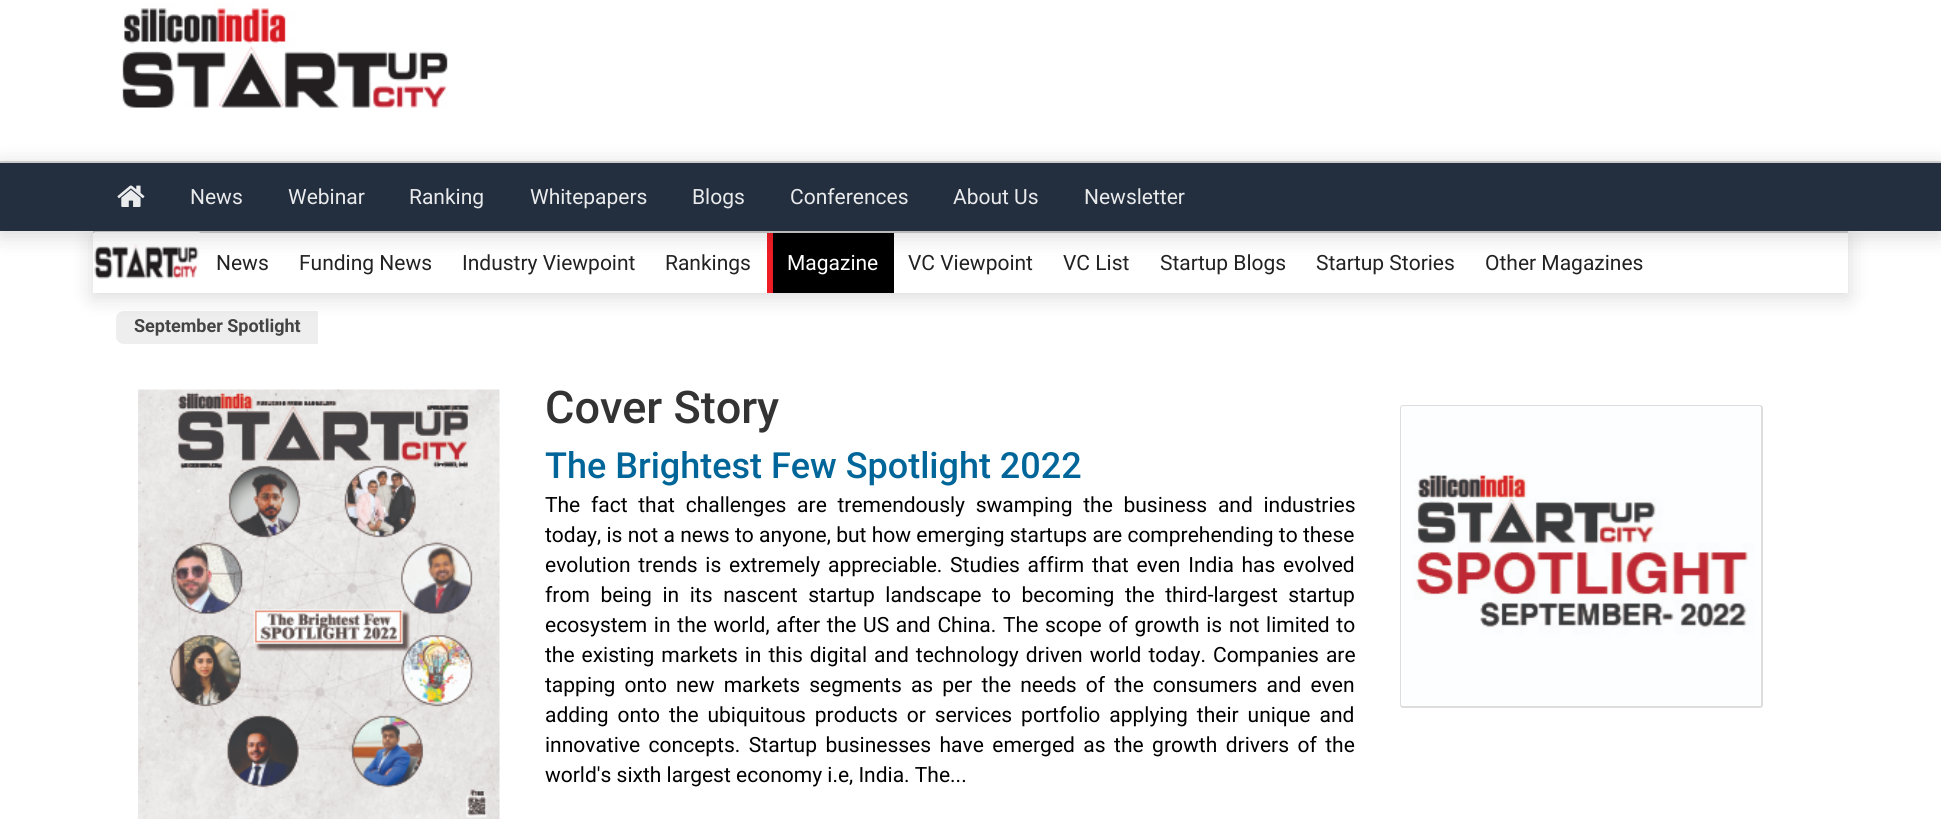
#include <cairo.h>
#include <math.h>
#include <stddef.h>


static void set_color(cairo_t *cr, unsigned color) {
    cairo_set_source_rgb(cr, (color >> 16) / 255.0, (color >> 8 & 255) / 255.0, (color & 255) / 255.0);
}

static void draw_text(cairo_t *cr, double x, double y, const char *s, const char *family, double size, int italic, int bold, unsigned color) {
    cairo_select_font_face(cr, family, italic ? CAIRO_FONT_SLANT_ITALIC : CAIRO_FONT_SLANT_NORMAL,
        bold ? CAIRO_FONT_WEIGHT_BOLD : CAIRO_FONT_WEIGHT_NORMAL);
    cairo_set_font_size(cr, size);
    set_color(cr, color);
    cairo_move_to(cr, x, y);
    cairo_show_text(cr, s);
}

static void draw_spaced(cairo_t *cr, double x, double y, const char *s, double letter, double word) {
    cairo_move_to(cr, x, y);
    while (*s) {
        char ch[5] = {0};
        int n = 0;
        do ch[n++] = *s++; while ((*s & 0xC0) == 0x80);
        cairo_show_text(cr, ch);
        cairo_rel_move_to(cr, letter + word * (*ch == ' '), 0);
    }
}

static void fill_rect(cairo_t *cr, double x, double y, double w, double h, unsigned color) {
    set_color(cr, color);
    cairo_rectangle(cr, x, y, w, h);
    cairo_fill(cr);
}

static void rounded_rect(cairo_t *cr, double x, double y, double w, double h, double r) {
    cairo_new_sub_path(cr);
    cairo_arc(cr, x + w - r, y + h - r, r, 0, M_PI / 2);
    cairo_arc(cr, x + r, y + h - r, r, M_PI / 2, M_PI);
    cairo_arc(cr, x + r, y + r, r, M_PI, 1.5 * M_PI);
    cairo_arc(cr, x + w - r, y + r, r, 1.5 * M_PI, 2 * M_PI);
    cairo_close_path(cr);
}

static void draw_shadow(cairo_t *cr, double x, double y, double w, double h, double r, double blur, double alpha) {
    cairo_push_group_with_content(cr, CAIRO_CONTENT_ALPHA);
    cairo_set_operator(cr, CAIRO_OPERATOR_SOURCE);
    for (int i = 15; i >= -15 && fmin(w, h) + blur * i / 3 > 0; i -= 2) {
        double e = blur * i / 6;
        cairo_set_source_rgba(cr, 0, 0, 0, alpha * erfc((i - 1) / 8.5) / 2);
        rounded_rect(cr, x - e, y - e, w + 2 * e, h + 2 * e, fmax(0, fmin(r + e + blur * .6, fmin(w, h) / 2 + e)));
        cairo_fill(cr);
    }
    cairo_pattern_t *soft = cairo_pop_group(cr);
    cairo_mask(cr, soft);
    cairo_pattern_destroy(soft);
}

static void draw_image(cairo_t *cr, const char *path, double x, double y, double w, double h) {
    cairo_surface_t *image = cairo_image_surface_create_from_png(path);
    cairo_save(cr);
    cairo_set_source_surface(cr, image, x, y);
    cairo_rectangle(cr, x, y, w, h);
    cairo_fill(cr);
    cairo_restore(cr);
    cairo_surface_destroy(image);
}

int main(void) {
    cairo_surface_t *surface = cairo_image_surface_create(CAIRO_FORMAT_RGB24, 1941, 819);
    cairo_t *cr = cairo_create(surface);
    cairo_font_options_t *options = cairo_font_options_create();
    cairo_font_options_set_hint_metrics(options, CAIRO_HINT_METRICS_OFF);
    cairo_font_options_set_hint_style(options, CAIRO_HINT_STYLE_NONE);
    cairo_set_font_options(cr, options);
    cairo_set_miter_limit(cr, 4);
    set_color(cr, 0xFFFFFF);
    cairo_paint(cr);
    draw_image(cr, "assets/img1.png", 122, 3, 326, 105);
    set_color(cr, 0xEEEEEE);
    cairo_new_path(cr);
    cairo_move_to(cr, 124, 311);
    cairo_line_to(cr, 318, 311);
    cairo_line_to(cr, 318, 344);
    cairo_line_to(cr, 124, 344);
    cairo_curve_to(cr, 119.5, 344, 116, 340.5, 116, 336);
    cairo_line_to(cr, 116, 319);
    cairo_curve_to(cr, 116, 314.5, 119.5, 311, 124, 311);
    cairo_close_path(cr);
    cairo_fill(cr);
    cairo_save(cr);
    cairo_set_fill_rule(cr, CAIRO_FILL_RULE_EVEN_ODD);
    cairo_new_path(cr);
    cairo_move_to(cr, 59, 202);
    cairo_line_to(cr, 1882, 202);
    cairo_line_to(cr, 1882, 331);
    cairo_line_to(cr, 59, 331);
    cairo_close_path(cr);
    cairo_move_to(cr, 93, 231);
    cairo_line_to(cr, 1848, 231);
    cairo_line_to(cr, 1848, 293);
    cairo_line_to(cr, 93, 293);
    cairo_close_path(cr);
    cairo_clip(cr);
    set_color(cr, 0x000000);
    draw_shadow(cr, 93, 236, 1755, 61, 0, 11, 0.15);
    cairo_restore(cr);
    fill_rect(cr, 93, 231, 1755, 2, 0xCCCCCC);
    draw_image(cr, "assets/img3.png", 93, 232, 108, 47);
    fill_rect(cr, 773, 233, 121, 60, 0x000000);
    fill_rect(cr, 767, 233, 6, 60, 0xEE1C25);
    set_color(cr, 0x000000);
    draw_shadow(cr, 0, 165, 1941, 71, 0, 11, 0.15);
    fill_rect(cr, 0, 163, 1941, 68, 0x232F3E);
    fill_rect(cr, 0, 161, 1941, 2, 0xCCCCCC);
    draw_image(cr, "assets/img2.png", 117, 185, 28, 22);
    draw_text(cr, 190, 204, "News", "Roboto", 21, 0, 0, 0xE9EAEC);
    draw_text(cr, 288, 204, "Webinar", "Roboto", 21, 0, 0, 0xE9EAEC);
    draw_text(cr, 409, 204, "Ranking", "Roboto", 21, 0, 0, 0xE9EAEC);
    draw_text(cr, 530, 204, "Whitepapers", "Roboto", 21, 0, 0, 0xE9EAEC);
    draw_text(cr, 692, 204, "Blogs", "Roboto", 21, 0, 0, 0xE9EAEC);
    draw_text(cr, 790, 204, "Conferences", "Roboto", 21, 0, 0, 0xE9EAEC);
    draw_text(cr, 953, 204, "About Us", "Roboto", 21, 0, 0, 0xE9EAEC);
    draw_text(cr, 1084, 204, "Newsletter", "Roboto", 21, 0, 0, 0xE9EAEC);
    draw_text(cr, 216, 270, "News", "Roboto", 21, 0, 0, 0x222222);
    draw_text(cr, 299, 270, "Funding News", "Roboto", 21, 0, 0, 0x222222);
    draw_text(cr, 462, 270, "Industry Viewpoint", "Roboto", 21, 0, 0, 0x222222);
    draw_text(cr, 665, 270, "Rankings", "Roboto", 21, 0, 0, 0x222222);
    draw_text(cr, 787, 270, "Magazine", "Roboto", 21, 0, 0, 0xFFFFFF);
    draw_text(cr, 908, 270, "VC Viewpoint", "Roboto", 21, 0, 0, 0x222222);
    draw_text(cr, 1063, 270, "VC List", "Roboto", 21, 0, 0, 0x222222);
    draw_text(cr, 1160, 270, "Startup Blogs", "Roboto", 21, 0, 0, 0x222222);
    draw_text(cr, 1316, 270, "Startup Stories", "Roboto", 21, 0, 0, 0x222222);
    draw_text(cr, 1485, 270, "Other Magazines", "Roboto", 21, 0, 0, 0x222222);
    draw_text(cr, 134, 332, "September Spotlight", "Roboto", 18, 0, 1, 0x444444);
    draw_image(cr, "assets/img4.png", 138, 389, 362, 430);
    draw_text(cr, 545, 423, "Cover Story", "Roboto Medium", 45, 0, 0, 0x333333);
    draw_text(cr, 545, 478, "The Brightest Few Spotlight 2022", "Roboto Medium", 36, 0, 0, 0x006699);
    cairo_select_font_face(cr, "Roboto", CAIRO_FONT_SLANT_NORMAL, CAIRO_FONT_WEIGHT_NORMAL);
    cairo_set_font_size(cr, 21);
    set_color(cr, 0x000000);
    draw_spaced(cr, 545, 512, "The fact that challenges are tremendously swamping the business and industries", 0, 5.5);
    draw_spaced(cr, 545, 542, "today, is not a news to anyone, but how emerging startups are comprehending to these", 0, 0.1);
    draw_spaced(cr, 545, 572, "evolution trends is extremely appreciable. Studies affirm that even India has evolved", 0, 2.5);
    draw_spaced(cr, 545, 602, "from being in its nascent startup landscape to becoming the third-largest startup", 0, 5.4);
    draw_spaced(cr, 545, 632, "ecosystem in the world, after the US and China. The scope of growth is not limited to", 0, 1.5);
    draw_spaced(cr, 545, 662, "the existing markets in this digital and technology driven world today. Companies are", 0, 1.75);
    draw_spaced(cr, 545, 692, "tapping onto new markets segments as per the needs of the consumers and even", 0, 3.9);
    draw_spaced(cr, 545, 722, "adding onto the ubiquitous products or services portfolio applying their unique and", 0, 3.75);
    draw_spaced(cr, 545, 752, "innovative concepts. Startup businesses have emerged as the growth drivers of the", 0, 3.25);
    draw_text(cr, 545, 782, "world's sixth largest economy i.e, India. The...", "Roboto", 21, 0, 0, 0x000000);
    rounded_rect(cr, 1401, 406, 361, 301, 2);
    set_color(cr, 0xDDDDDD);
    cairo_stroke(cr);
    draw_image(cr, "assets/img5.png", 1401, 406, 360, 300);
    cairo_surface_write_to_png(surface, "output.png");
    cairo_font_options_destroy(options);
    cairo_destroy(cr);
    cairo_surface_destroy(surface);
    return 0;
}
